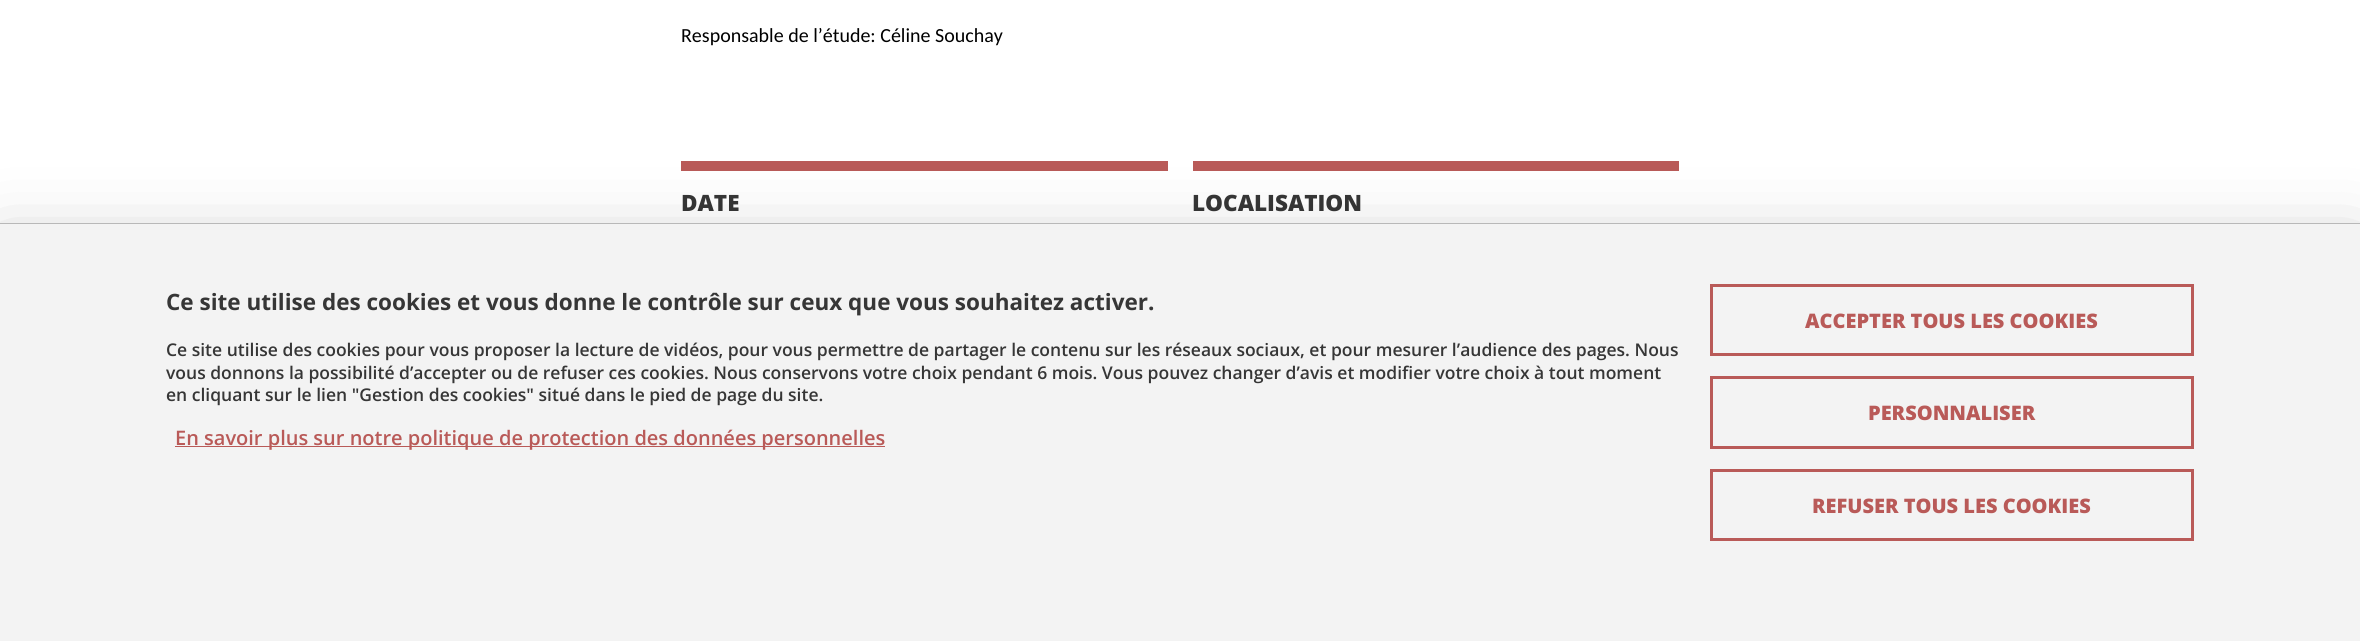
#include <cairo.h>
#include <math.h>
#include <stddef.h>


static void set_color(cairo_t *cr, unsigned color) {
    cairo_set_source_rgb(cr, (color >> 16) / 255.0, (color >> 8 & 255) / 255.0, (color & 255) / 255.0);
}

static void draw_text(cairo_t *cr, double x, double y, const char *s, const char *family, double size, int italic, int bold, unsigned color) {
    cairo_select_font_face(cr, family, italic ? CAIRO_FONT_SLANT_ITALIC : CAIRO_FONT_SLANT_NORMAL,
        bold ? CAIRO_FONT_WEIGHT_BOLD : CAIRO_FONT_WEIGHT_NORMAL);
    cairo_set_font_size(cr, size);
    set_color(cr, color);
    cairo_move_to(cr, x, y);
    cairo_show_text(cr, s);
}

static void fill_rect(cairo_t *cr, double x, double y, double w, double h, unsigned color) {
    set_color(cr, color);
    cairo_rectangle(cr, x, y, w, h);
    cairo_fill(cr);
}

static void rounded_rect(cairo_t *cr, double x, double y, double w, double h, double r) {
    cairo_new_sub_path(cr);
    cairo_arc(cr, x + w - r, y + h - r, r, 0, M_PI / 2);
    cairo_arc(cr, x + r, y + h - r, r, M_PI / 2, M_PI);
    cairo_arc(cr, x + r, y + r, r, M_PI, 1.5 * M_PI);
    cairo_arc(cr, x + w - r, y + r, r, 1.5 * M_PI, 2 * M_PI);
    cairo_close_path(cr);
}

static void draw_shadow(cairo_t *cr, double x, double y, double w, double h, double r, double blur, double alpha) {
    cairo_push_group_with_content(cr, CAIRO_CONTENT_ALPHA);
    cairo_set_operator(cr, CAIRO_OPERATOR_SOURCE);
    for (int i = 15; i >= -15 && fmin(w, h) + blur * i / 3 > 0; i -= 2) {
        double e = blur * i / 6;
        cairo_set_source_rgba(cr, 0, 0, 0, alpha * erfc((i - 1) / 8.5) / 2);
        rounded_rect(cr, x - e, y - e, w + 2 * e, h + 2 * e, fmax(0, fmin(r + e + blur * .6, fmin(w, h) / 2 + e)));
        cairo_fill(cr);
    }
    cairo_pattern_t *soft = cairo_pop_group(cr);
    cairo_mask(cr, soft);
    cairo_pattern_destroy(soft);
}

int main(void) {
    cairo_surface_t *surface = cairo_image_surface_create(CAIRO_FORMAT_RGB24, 2360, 641);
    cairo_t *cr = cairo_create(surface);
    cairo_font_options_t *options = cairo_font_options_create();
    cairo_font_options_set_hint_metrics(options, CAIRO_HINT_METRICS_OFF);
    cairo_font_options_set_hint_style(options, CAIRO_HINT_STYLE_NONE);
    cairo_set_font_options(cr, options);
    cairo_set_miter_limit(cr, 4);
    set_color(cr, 0xFFFFFF);
    cairo_paint(cr);
    draw_text(cr, 681, 42, "Responsable de l’étude: Céline Souchay", "Carlito", 20, 0, 0, 0x000000);
    fill_rect(cr, 681, 161, 487, 10, 0xB95A58);
    draw_text(cr, 681, 211, "DATE", "Open Sans ExtraBold", 22.5, 0, 0, 0x363636);
    fill_rect(cr, 1193, 161, 486, 10, 0xB95A58);
    draw_text(cr, 1192, 211, "LOCALISATION", "Open Sans ExtraBold", 22.5, 0, 0, 0x363636);
    set_color(cr, 0x000000);
    draw_shadow(cr, 0, 248, 2360, 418, 0, 37.5, 0.25);
    fill_rect(cr, 0, 224, 2360, 417, 0xF3F3F3);
    fill_rect(cr, 0, 223, 2360, 1, 0xB8B8B8);
    draw_text(cr, 166, 310, "Ce site utilise des cookies et vous donne le contrôle sur ceux que vous souhaitez activer.", "Open Sans", 22.5, 0, 1, 0x363636);
    draw_text(cr, 166, 356, "Ce site utilise des cookies pour vous proposer la lecture de vidéos, pour vous permettre de partager le contenu sur les réseaux sociaux, et pour mesurer l’audience des pages. Nous", "Open Sans SemiBold", 17.5, 0, 0, 0x363636);
    draw_text(cr, 166, 379, "vous donnons la possibilité d’accepter ou de refuser ces cookies. Nous conservons votre choix pendant 6 mois. Vous pouvez changer d’avis et modifier votre choix à tout moment", "Open Sans SemiBold", 17.5, 0, 0, 0x363636);
    draw_text(cr, 166, 401, "en cliquant sur le lien \"Gestion des cookies\" situé dans le pied de page du site.", "Open Sans SemiBold", 17.5, 0, 0, 0x363636);
    fill_rect(cr, 175, 446, 710, 1, 0xB95A58);
    draw_text(cr, 175, 445, "En savoir plus sur notre politique de protection des données personnelles", "Open Sans SemiBold", 20, 0, 0, 0xB95A58);
    cairo_rectangle(cr, 1711.5, 285.5, 481, 69);
    cairo_set_line_width(cr, 3);
    cairo_stroke(cr);
    draw_text(cr, 1805, 328, "ACCEPTER TOUS LES COOKIES", "Open Sans ExtraBold", 20, 0, 0, 0xB95A58);
    cairo_rectangle(cr, 1711.5, 377.5, 481, 70);
    cairo_stroke(cr);
    draw_text(cr, 1868, 420, "PERSONNALISER", "Open Sans ExtraBold", 20, 0, 0, 0xB95A58);
    cairo_rectangle(cr, 1711.5, 470.5, 481, 69);
    cairo_stroke(cr);
    draw_text(cr, 1812, 513, "REFUSER TOUS LES COOKIES", "Open Sans ExtraBold", 20, 0, 0, 0xB95A58);
    cairo_surface_write_to_png(surface, "output.png");
    cairo_font_options_destroy(options);
    cairo_destroy(cr);
    cairo_surface_destroy(surface);
    return 0;
}
